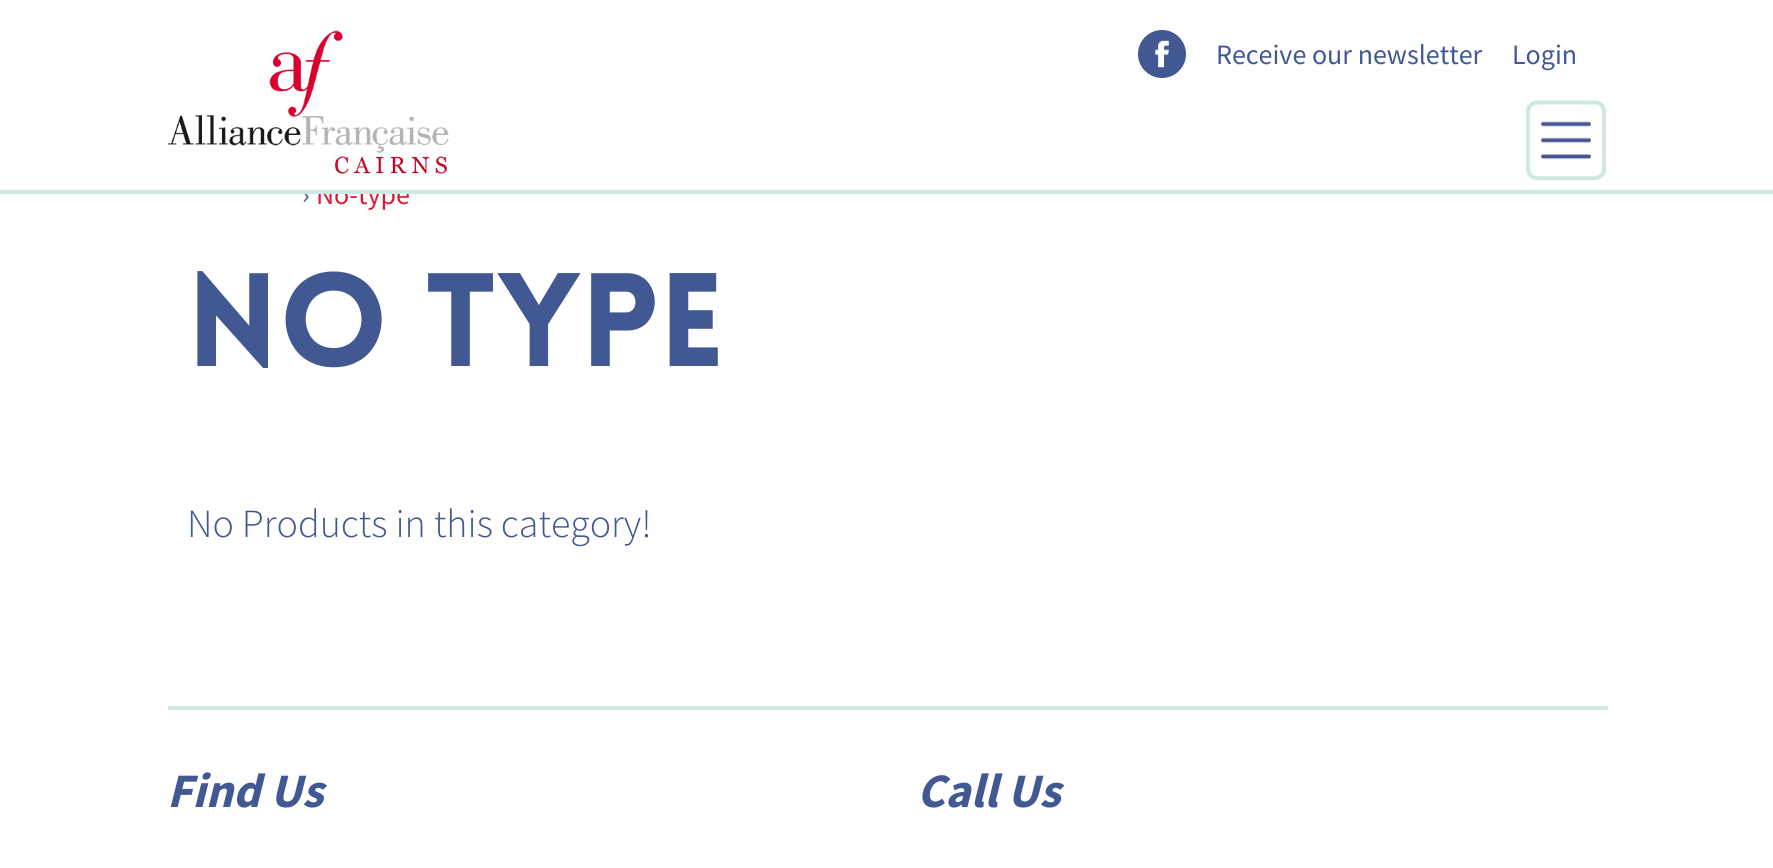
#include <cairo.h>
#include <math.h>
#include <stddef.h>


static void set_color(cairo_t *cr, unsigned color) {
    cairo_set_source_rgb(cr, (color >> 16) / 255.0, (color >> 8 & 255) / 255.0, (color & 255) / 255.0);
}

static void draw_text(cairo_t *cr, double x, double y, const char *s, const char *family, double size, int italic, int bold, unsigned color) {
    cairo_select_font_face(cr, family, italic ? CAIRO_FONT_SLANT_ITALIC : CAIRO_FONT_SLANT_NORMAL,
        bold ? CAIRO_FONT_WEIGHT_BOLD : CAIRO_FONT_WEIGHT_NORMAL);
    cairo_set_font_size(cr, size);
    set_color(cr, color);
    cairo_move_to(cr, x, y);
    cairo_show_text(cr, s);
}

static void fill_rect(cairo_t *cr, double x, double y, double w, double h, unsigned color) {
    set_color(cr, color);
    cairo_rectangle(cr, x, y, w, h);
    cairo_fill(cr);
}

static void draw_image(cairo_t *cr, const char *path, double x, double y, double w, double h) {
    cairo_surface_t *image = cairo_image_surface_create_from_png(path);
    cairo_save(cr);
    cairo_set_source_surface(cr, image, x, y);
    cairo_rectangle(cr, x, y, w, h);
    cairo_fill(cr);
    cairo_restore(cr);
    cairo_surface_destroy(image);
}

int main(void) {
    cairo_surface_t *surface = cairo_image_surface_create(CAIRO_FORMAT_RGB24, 1773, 868);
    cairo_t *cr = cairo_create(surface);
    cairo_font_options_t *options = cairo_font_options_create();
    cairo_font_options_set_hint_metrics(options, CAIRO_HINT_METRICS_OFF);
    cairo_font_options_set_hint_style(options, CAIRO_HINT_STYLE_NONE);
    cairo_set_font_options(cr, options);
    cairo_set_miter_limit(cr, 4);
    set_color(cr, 0xFFFFFF);
    cairo_paint(cr);
    draw_text(cr, 316, 204, "No-type", "Source Sans Pro", 28, 0, 0, 0xE21837);
    fill_rect(cr, 318, 185, 45, 5, 0xFFFFFF);
    draw_text(cr, 302, 204, "›", "Source Sans Pro", 28, 0, 0, 0x425893);
    fill_rect(cr, 0, 190, 1773, 4, 0xCEE8E3);
    draw_image(cr, "assets/img1.png", 168, 30, 281, 145);
    set_color(cr, 0x425893);
    cairo_arc(cr, 1162, 54, 24, 0, 2 * M_PI);
    cairo_fill(cr);
    draw_image(cr, "assets/img2.png", 1155, 40, 14, 28);
    draw_text(cr, 1216, 64, "Receive our newsletter", "Source Sans Pro", 28, 0, 0, 0x425893);
    draw_text(cr, 1512, 64, "Login", "Source Sans Pro", 28, 0, 0, 0x425893);
    draw_image(cr, "assets/img3.png", 1526, 100, 80, 80);
    draw_text(cr, 187, 366, "NO TYPE", "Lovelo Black", 130, 0, 0, 0x425893);
    draw_text(cr, 187, 537, "No Products in this category!", "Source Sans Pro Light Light", 40, 0, 0, 0x425893);
    fill_rect(cr, 168, 706, 1440, 4, 0xCEE8E3);
    draw_text(cr, 167, 807, "Find Us", "Source Sans Pro", 48, 1, 1, 0x425893);
    draw_text(cr, 917, 807, "Call Us", "Source Sans Pro", 48, 1, 1, 0x425893);
    cairo_surface_write_to_png(surface, "output.png");
    cairo_font_options_destroy(options);
    cairo_destroy(cr);
    cairo_surface_destroy(surface);
    return 0;
}
